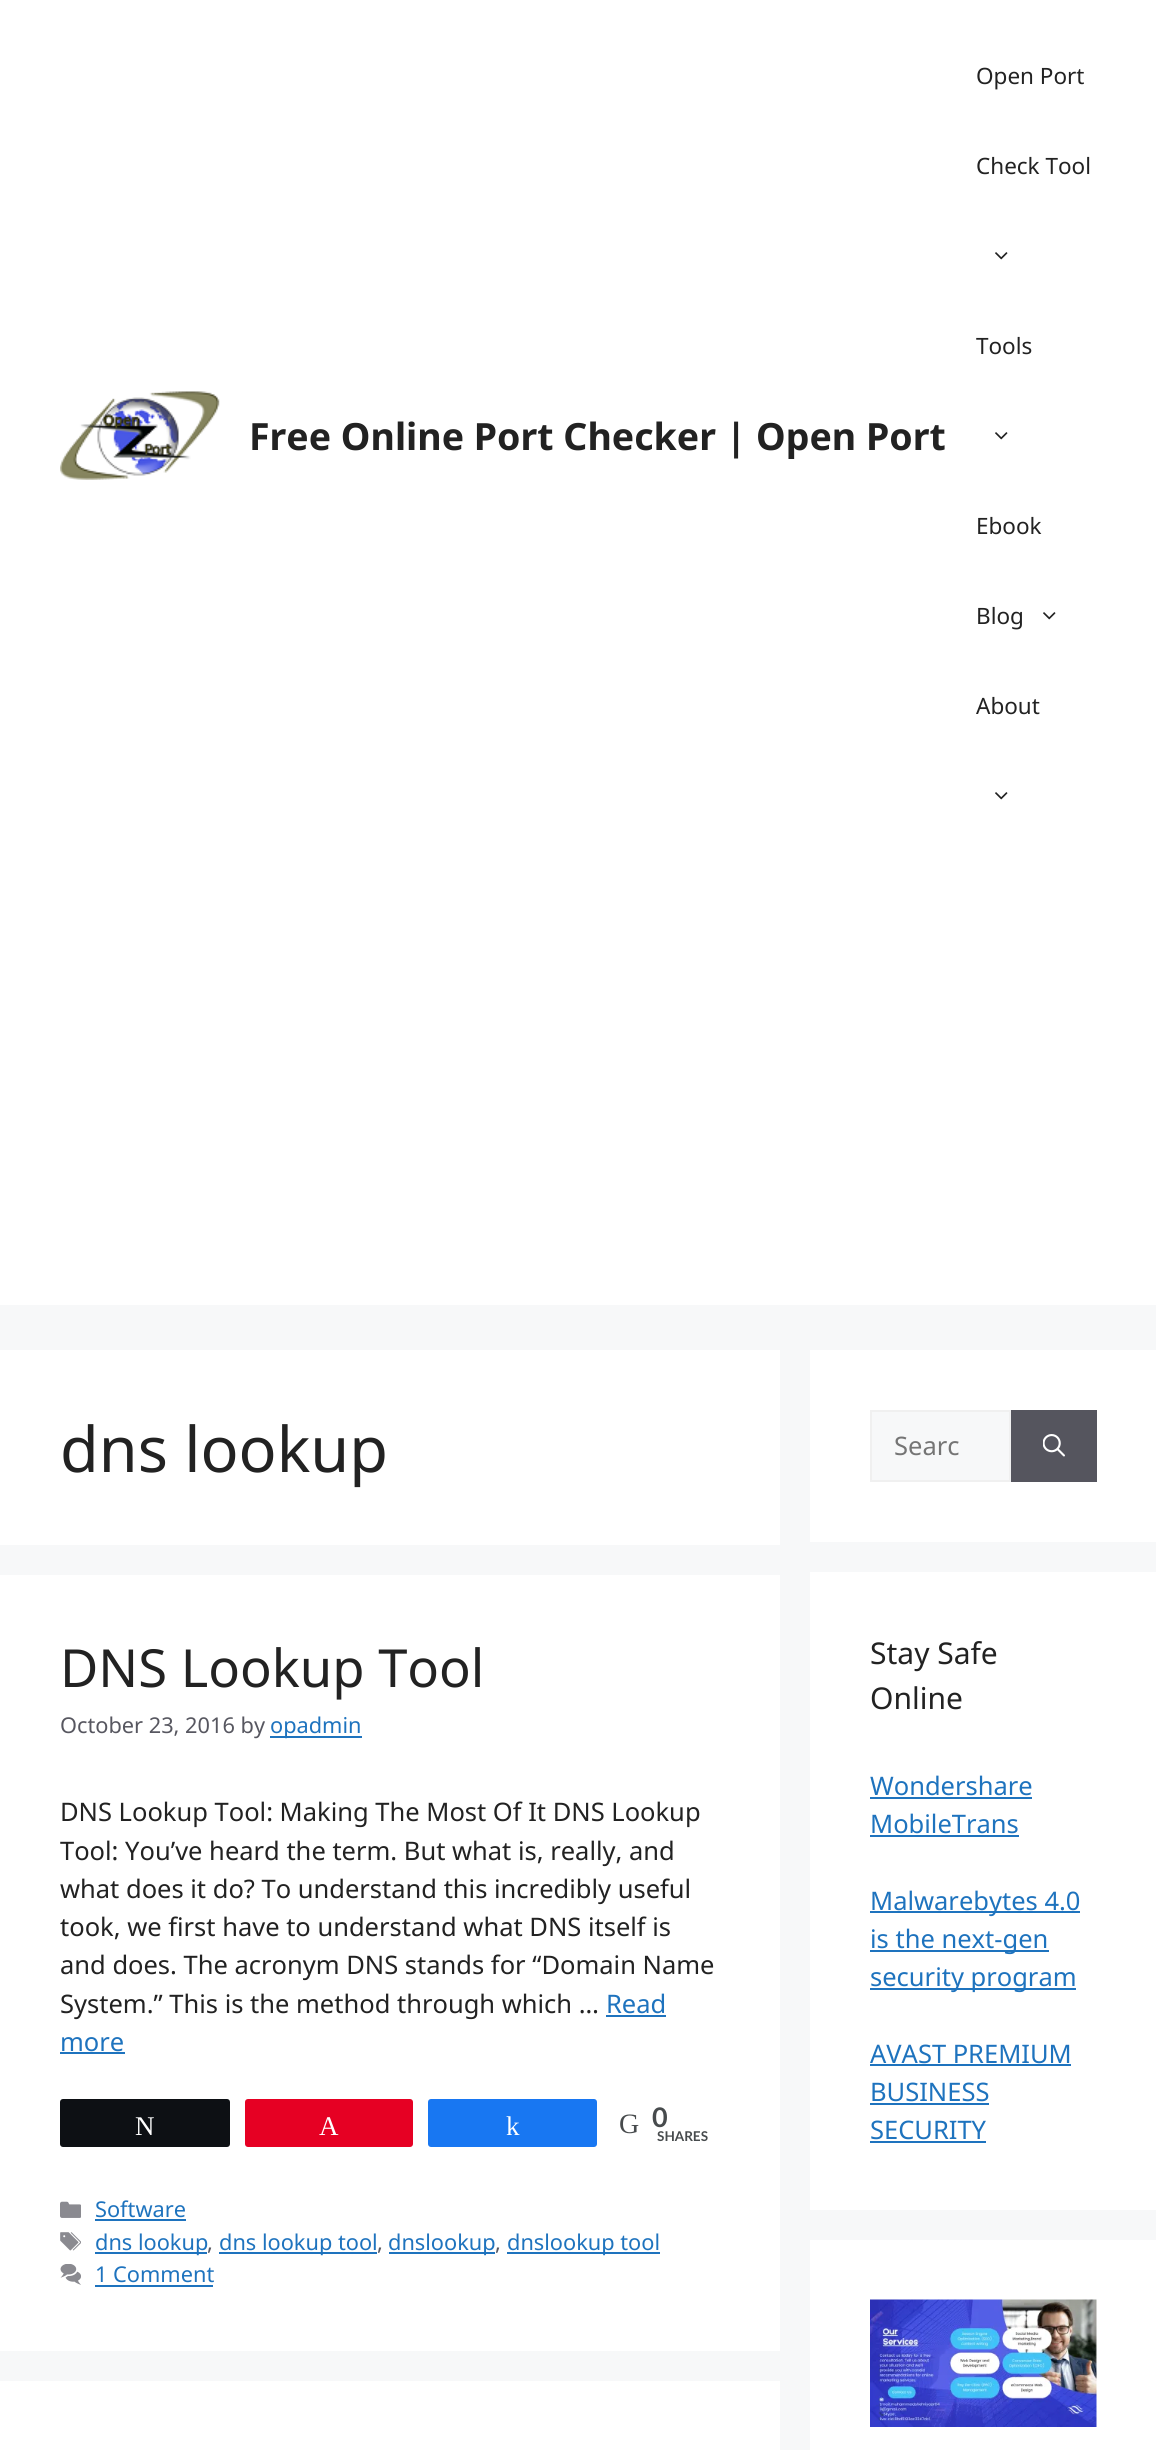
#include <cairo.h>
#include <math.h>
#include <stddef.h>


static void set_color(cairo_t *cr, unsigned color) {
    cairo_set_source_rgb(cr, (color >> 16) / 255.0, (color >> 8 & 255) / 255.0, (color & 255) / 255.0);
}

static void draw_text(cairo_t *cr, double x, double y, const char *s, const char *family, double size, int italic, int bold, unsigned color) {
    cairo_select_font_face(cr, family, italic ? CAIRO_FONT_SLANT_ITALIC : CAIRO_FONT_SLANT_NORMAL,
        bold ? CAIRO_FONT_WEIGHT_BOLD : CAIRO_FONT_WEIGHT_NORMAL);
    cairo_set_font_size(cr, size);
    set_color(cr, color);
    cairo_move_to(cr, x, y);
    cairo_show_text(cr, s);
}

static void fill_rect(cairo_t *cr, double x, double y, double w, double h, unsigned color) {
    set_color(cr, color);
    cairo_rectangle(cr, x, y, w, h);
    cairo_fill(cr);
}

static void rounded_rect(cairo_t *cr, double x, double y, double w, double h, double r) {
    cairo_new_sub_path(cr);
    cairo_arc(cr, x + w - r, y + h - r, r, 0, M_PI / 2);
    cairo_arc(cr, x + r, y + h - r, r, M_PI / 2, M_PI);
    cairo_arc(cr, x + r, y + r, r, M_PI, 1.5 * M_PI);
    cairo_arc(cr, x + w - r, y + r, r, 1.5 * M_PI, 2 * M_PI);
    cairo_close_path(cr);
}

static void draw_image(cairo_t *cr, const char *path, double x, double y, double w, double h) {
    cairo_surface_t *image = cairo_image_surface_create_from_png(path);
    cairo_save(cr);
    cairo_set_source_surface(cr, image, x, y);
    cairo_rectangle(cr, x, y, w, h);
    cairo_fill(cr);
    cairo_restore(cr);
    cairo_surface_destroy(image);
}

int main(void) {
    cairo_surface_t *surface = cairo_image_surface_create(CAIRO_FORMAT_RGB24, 1156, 2450);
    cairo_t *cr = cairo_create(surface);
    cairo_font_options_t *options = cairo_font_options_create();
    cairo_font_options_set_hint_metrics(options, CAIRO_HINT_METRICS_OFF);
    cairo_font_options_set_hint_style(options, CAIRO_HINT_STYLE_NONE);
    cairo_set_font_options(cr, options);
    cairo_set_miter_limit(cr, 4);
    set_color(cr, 0xF7F8F9);
    cairo_paint(cr);
    fill_rect(cr, 0, 0, 1156, 1305, 0xFFFFFF);
    draw_image(cr, "assets/img1.png", 60, 391, 160, 89);
    draw_text(cr, 249, 450, "Free Online Port Checker | Open Port", "Noto Sans", 37.5, 0, 1, 0x222222);
    draw_text(cr, 976, 84, "Open Port", "Noto Sans", 22.5, 0, 0, 0x222222);
    draw_text(cr, 976, 174, "Check Tool", "Noto Sans", 22.5, 0, 0, 0x222222);
    draw_image(cr, "assets/img2.png", 995, 252, 13, 8);
    draw_text(cr, 976, 354, "Tools", "Noto Sans", 22.5, 0, 0, 0x222222);
    draw_image(cr, "assets/img2.png", 995, 432, 13, 8);
    draw_text(cr, 976, 534, "Ebook", "Noto Sans", 22.5, 0, 0, 0x222222);
    draw_text(cr, 976, 624, "Blog", "Noto Sans", 22.5, 0, 0, 0x222222);
    draw_image(cr, "assets/img2.png", 1043, 612, 13, 8);
    draw_text(cr, 976, 714, "About", "Noto Sans", 22.5, 0, 0, 0x222222);
    draw_image(cr, "assets/img2.png", 995, 792, 13, 8);
    fill_rect(cr, 0, 1350, 780, 195, 0xFFFFFF);
    draw_text(cr, 60, 1472, "dns lookup", "Noto Sans", 63, 0, 0, 0x222222);
    fill_rect(cr, 0, 1575, 780, 776, 0xFFFFFF);
    draw_text(cr, 60, 1687, "DNS Lookup Tool", "Noto Sans", 52.5, 0, 0, 0x222222);
    draw_text(cr, 60, 1733, "October 23, 2016 by", "Noto Sans", 21.75, 0, 0, 0x575760);
    fill_rect(cr, 270, 1736, 92, 2, 0x1E73BE);
    draw_text(cr, 270, 1733, "opadmin", "Noto Sans", 21.75, 0, 0, 0x1E73BE);
    draw_text(cr, 60, 1821, "DNS Lookup Tool: Making The Most Of It DNS Lookup", "Noto Sans", 25.5, 0, 0, 0x222222);
    draw_text(cr, 60, 1860, "Tool: You’ve heard the term. But what is, really, and", "Noto Sans", 25.5, 0, 0, 0x222222);
    draw_text(cr, 60, 1898, "what does it do? To understand this incredibly useful", "Noto Sans", 25.5, 0, 0, 0x222222);
    draw_text(cr, 60, 1936, "took, we first have to understand what DNS itself is", "Noto Sans", 25.5, 0, 0, 0x222222);
    draw_text(cr, 60, 1974, "and does. The acronym DNS stands for “Domain Name", "Noto Sans", 25.5, 0, 0, 0x222222);
    draw_text(cr, 60, 2013, "System.” This is the method through which …", "Noto Sans", 25.5, 0, 0, 0x222222);
    draw_text(cr, 606, 2013, "Read", "Noto Sans", 25.5, 0, 0, 0x1E73BE);
    fill_rect(cr, 606, 2015, 60, 2, 0x1E73BE);
    draw_text(cr, 60, 2051, "more", "Noto Sans", 25.5, 0, 0, 0x1E73BE);
    fill_rect(cr, 60, 2052, 65, 2, 0x1E73BE);
    set_color(cr, 0x0D1014);
    rounded_rect(cr, 61, 2100, 168, 46, 2);
    cairo_fill_preserve(cr);
    cairo_stroke(cr);
    draw_text(cr, 135, 2135, "N", "Liberation Serif", 27, 0, 0, 0xFFFFFF);
    set_color(cr, 0xE60023);
    rounded_rect(cr, 246, 2100, 166, 46, 2);
    cairo_fill_preserve(cr);
    cairo_stroke(cr);
    draw_text(cr, 319, 2135, "A", "Liberation Serif", 27, 0, 0, 0xFFFFFF);
    set_color(cr, 0x1877F2);
    rounded_rect(cr, 429, 2100, 167, 46, 2);
    cairo_fill_preserve(cr);
    cairo_stroke(cr);
    draw_text(cr, 506, 2135, "k", "Liberation Serif", 27, 0, 0, 0xFFFFFF);
    draw_text(cr, 619, 2133, "G", "Liberation Serif", 28, 0, 0, 0x474B4D);
    draw_text(cr, 652, 2127, "0", "Lato", 27, 0, 1, 0x474B4D);
    draw_text(cr, 657, 2141, "SHARES", "Lato", 13.5, 0, 1, 0x474B4D);
    draw_image(cr, "assets/img3.png", 60, 2201, 21, 17);
    draw_text(cr, 95, 2217, "Software", "Noto Sans", 21.75, 0, 0, 0x1E73BE);
    fill_rect(cr, 95, 2219, 91, 2, 0x1E73BE);
    draw_image(cr, "assets/img4.png", 60, 2232, 21, 19);
    fill_rect(cr, 95, 2252, 112, 2, 0x1E73BE);
    draw_text(cr, 95, 2250, "dns lookup", "Noto Sans", 21.75, 0, 0, 0x1E73BE);
    draw_text(cr, 207, 2250, ",", "Noto Sans", 21.75, 0, 0, 0x575760);
    fill_rect(cr, 219, 2252, 158, 2, 0x1E73BE);
    draw_text(cr, 219, 2250, "dns lookup tool", "Noto Sans", 21.75, 0, 0, 0x1E73BE);
    draw_text(cr, 377, 2250, ",", "Noto Sans", 21.75, 0, 0, 0x575760);
    fill_rect(cr, 389, 2252, 106, 2, 0x1E73BE);
    draw_text(cr, 388, 2250, "dnslookup", "Noto Sans", 21.75, 0, 0, 0x1E73BE);
    draw_text(cr, 495, 2250, ",", "Noto Sans", 21.75, 0, 0, 0x575760);
    fill_rect(cr, 507, 2252, 153, 2, 0x1E73BE);
    draw_text(cr, 507, 2250, "dnslookup tool", "Noto Sans", 21.75, 0, 0, 0x1E73BE);
    draw_image(cr, "assets/img5.png", 60, 2264, 21, 21);
    draw_text(cr, 95, 2282, "1 Comment", "Noto Sans", 21.75, 0, 0, 0x1E73BE);
    fill_rect(cr, 95, 2285, 118, 2, 0x1E73BE);
    fill_rect(cr, 0, 2381, 780, 69, 0xFFFFFF);
    fill_rect(cr, 810, 1350, 346, 192, 0xFFFFFF);
    set_color(cr, 0xF7F8F9);
    cairo_rectangle(cr, 871, 1411, 139, 70);
    cairo_fill_preserve(cr);
    set_color(cr, 0xF0F0F0);
    cairo_stroke(cr);
    draw_text(cr, 894, 1455, "Searc", "Noto Sans", 25.5, 0, 0, 0x757575);
    fill_rect(cr, 1011, 1410, 86, 72, 0x55555E);
    draw_image(cr, "assets/img6.png", 1043, 1434, 22, 23);
    fill_rect(cr, 810, 1572, 346, 638, 0xFFFFFF);
    draw_text(cr, 870, 1664, "Stay Safe", "Noto Sans", 30, 0, 0, 0x222222);
    draw_text(cr, 870, 1709, "Online", "Noto Sans", 30, 0, 0, 0x222222);
    draw_text(cr, 870, 1795, "Wondershare", "Noto Sans", 25.5, 0, 0, 0x1E73BE);
    fill_rect(cr, 870, 1797, 162, 2, 0x1E73BE);
    draw_text(cr, 870, 1833, "MobileTrans", "Noto Sans", 25.5, 0, 0, 0x1E73BE);
    fill_rect(cr, 870, 1835, 149, 2, 0x1E73BE);
    fill_rect(cr, 870, 1911, 210, 2, 0x1E73BE);
    draw_text(cr, 870, 1910, "Malwarebytes 4.0", "Noto Sans", 25.5, 0, 0, 0x1E73BE);
    fill_rect(cr, 870, 1950, 179, 2, 0x1E73BE);
    draw_text(cr, 870, 1948, "is the next-gen", "Noto Sans", 25.5, 0, 0, 0x1E73BE);
    fill_rect(cr, 870, 1988, 206, 2, 0x1E73BE);
    draw_text(cr, 870, 1986, "security program", "Noto Sans", 25.5, 0, 0, 0x1E73BE);
    draw_text(cr, 870, 2063, "AVAST PREMIUM", "Noto Sans", 25.5, 0, 0, 0x1E73BE);
    fill_rect(cr, 870, 2064, 201, 2, 0x1E73BE);
    draw_text(cr, 870, 2101, "BUSINESS", "Noto Sans", 25.5, 0, 0, 0x1E73BE);
    fill_rect(cr, 870, 2103, 119, 2, 0x1E73BE);
    draw_text(cr, 870, 2139, "SECURITY", "Noto Sans", 25.5, 0, 0, 0x1E73BE);
    fill_rect(cr, 870, 2141, 116, 2, 0x1E73BE);
    fill_rect(cr, 810, 2240, 346, 210, 0xFFFFFF);
    draw_image(cr, "assets/img7.png", 870, 2299, 227, 128);
    cairo_surface_write_to_png(surface, "output.png");
    cairo_font_options_destroy(options);
    cairo_destroy(cr);
    cairo_surface_destroy(surface);
    return 0;
}
